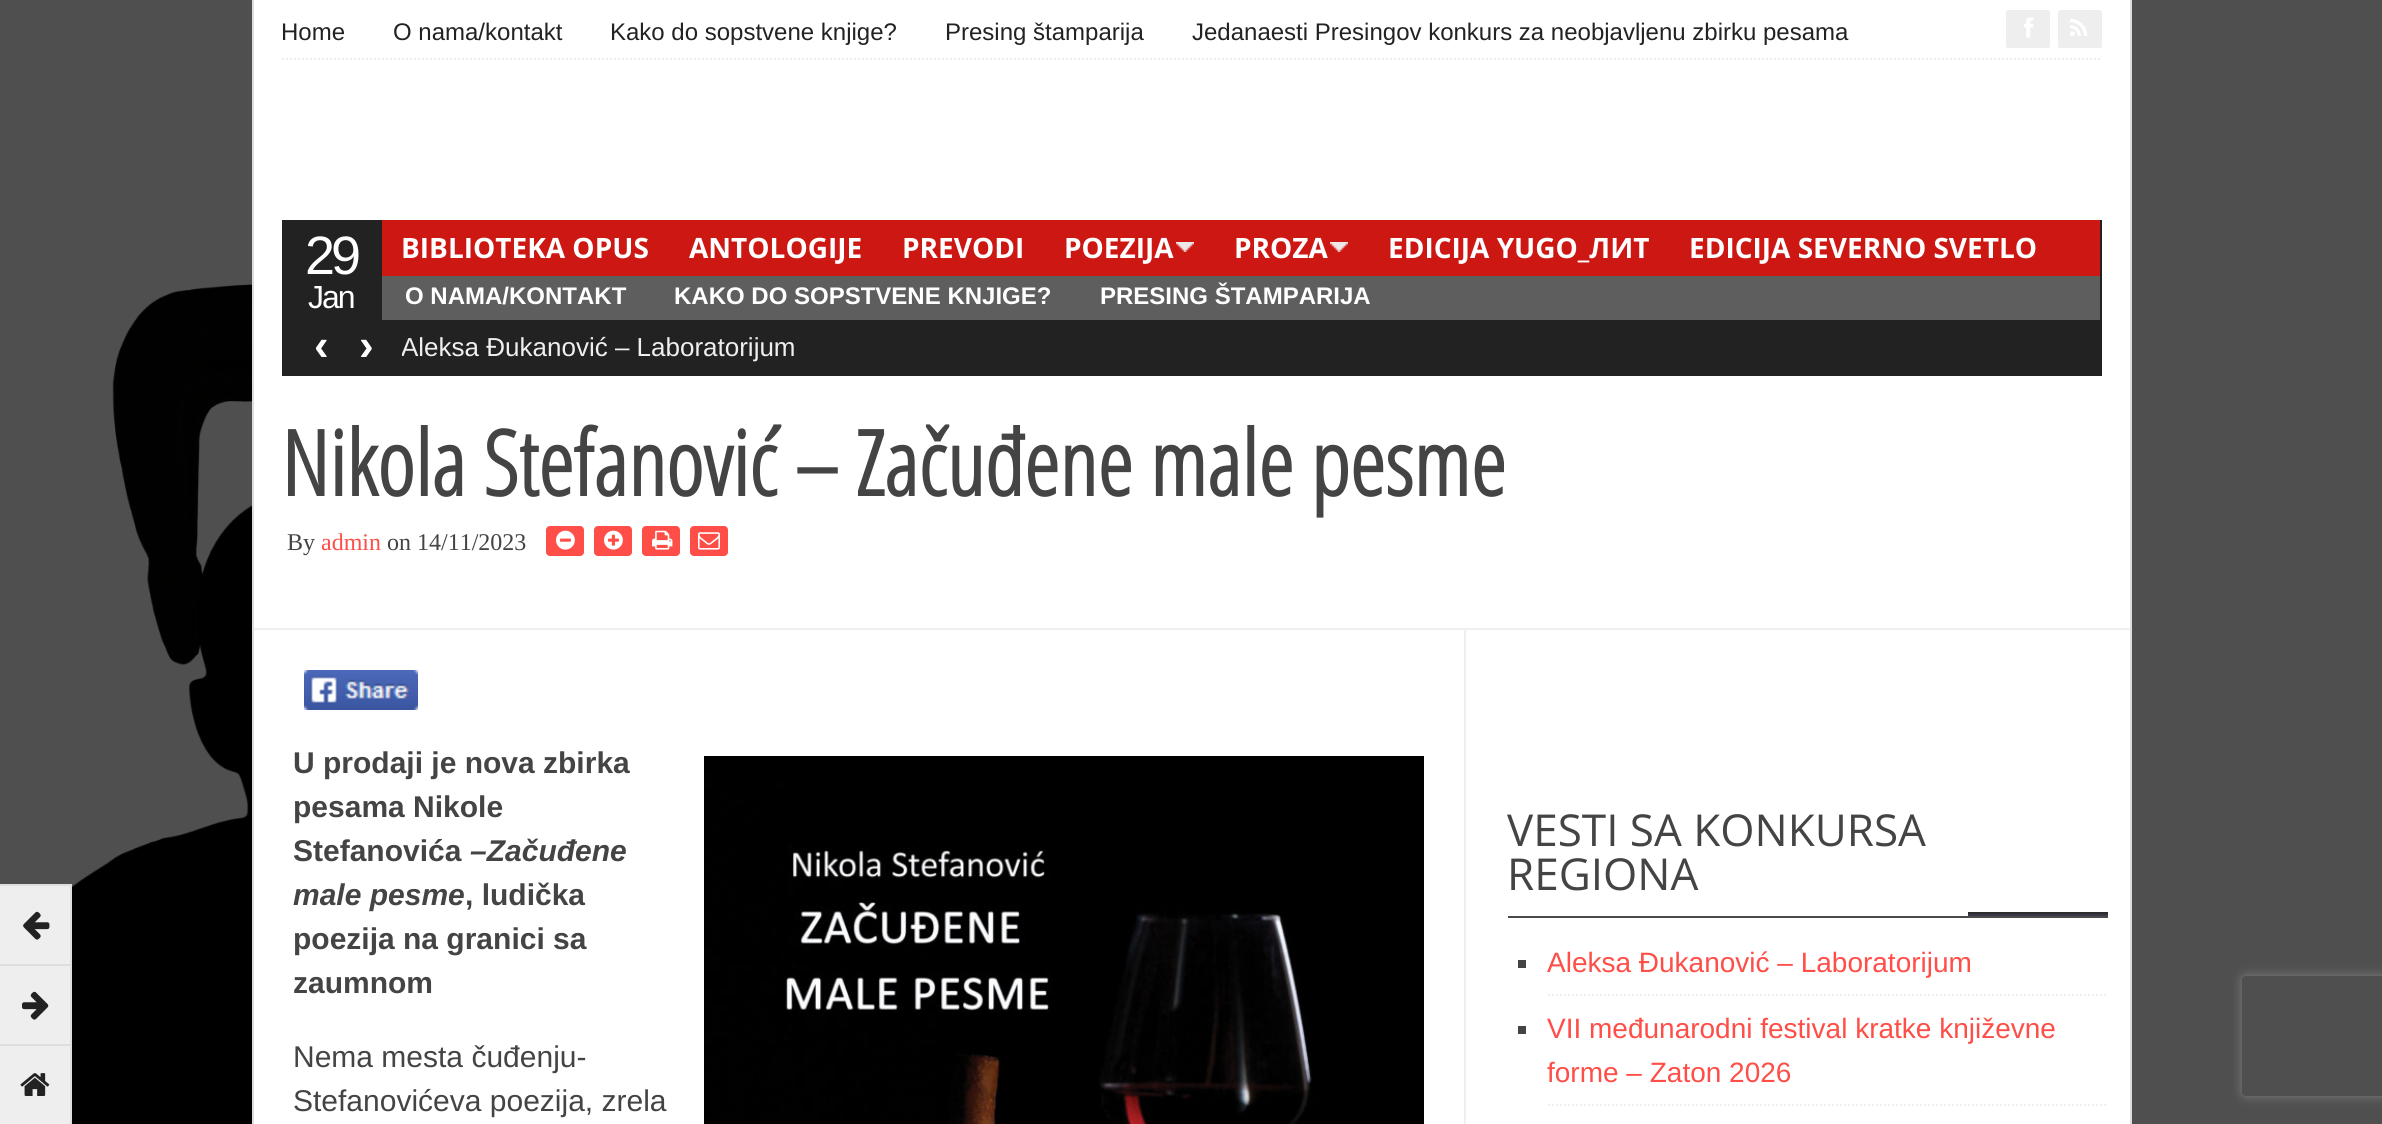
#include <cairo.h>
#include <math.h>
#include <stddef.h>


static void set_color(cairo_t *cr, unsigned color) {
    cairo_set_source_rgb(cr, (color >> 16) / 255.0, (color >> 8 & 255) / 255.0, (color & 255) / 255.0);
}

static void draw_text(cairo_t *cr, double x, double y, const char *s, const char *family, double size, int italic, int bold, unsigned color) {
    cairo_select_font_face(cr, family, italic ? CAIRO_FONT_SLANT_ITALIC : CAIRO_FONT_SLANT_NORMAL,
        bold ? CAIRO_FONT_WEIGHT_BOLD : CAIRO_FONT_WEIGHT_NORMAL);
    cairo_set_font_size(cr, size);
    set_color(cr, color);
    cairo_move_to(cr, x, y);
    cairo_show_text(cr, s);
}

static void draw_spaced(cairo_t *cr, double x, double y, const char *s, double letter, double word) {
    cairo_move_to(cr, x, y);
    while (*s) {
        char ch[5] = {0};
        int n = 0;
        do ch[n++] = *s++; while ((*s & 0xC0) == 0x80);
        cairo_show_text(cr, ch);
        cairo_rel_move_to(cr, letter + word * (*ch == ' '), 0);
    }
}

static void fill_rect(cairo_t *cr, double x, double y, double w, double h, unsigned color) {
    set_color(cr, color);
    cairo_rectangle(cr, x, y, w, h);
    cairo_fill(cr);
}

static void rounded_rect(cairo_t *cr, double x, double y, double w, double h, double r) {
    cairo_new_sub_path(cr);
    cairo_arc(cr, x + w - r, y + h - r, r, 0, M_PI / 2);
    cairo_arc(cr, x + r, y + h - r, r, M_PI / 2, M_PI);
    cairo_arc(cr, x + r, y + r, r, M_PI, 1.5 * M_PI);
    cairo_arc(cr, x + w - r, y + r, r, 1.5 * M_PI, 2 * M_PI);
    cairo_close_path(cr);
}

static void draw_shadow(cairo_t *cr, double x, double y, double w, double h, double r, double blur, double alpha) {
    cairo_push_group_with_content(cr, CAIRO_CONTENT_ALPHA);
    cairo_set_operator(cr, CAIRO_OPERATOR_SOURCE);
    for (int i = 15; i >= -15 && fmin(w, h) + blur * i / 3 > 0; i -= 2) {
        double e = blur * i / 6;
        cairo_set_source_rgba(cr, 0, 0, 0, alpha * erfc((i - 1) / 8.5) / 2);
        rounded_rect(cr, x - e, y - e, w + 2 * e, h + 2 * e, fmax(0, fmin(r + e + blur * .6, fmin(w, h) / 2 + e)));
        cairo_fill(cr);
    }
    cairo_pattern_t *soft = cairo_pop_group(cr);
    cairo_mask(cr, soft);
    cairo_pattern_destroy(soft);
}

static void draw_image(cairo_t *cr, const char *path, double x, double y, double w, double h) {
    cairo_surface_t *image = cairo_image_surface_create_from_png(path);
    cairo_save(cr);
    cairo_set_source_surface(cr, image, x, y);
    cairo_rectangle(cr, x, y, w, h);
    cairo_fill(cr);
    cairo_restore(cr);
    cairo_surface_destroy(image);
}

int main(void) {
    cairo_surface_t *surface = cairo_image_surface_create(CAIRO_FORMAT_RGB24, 2382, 1124);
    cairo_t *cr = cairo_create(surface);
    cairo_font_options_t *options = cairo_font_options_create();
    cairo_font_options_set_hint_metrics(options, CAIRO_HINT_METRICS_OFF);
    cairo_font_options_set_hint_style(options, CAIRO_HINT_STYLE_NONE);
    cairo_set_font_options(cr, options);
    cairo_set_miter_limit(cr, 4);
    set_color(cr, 0x4F4F4F);
    cairo_paint(cr);
    draw_image(cr, "assets/img1.png", 72, 284, 180, 840);
    fill_rect(cr, 0, 886, 70, 78, 0xEEEEEE);
    fill_rect(cr, 0, 884, 72, 2, 0xDDDDDD);
    fill_rect(cr, 70, 884, 2, 80, 0xDDDDDD);
    draw_image(cr, "assets/img2.png", 23, 911, 27, 29);
    fill_rect(cr, 0, 966, 70, 78, 0xEEEEEE);
    fill_rect(cr, 0, 964, 72, 2, 0xDDDDDD);
    fill_rect(cr, 70, 964, 2, 80, 0xDDDDDD);
    draw_image(cr, "assets/img3.png", 22, 991, 27, 29);
    fill_rect(cr, 0, 1046, 70, 78, 0xEEEEEE);
    fill_rect(cr, 0, 1044, 72, 2, 0xDDDDDD);
    fill_rect(cr, 70, 1044, 2, 80, 0xDDDDDD);
    draw_image(cr, "assets/img4.png", 20, 1073, 30, 23);
    fill_rect(cr, 254, 0, 1876, 1124, 0xFFFFFF);
    fill_rect(cr, 2130, 0, 2, 1124, 0xDDDDDD);
    fill_rect(cr, 252, 0, 2, 1124, 0xDDDDDD);
    cairo_new_path(cr);
    cairo_move_to(cr, 282, 59);
    cairo_line_to(cr, 2102, 59);
    set_color(cr, 0xEEEEEE);
    cairo_set_dash(cr, (double[]){2, 2}, 2, 0);
    cairo_stroke(cr);
    draw_text(cr, 281, 40, "Home", "Liberation Sans", 24, 0, 0, 0x222222);
    draw_text(cr, 393, 40, "O nama/kontakt", "Liberation Sans", 24, 0, 0, 0x222222);
    draw_text(cr, 610, 40, "Kako do sopstvene knjige?", "Liberation Sans", 24, 0, 0, 0x222222);
    draw_text(cr, 945, 40, "Presing štamparija", "Liberation Sans", 24, 0, 0, 0x222222);
    draw_text(cr, 1192, 40, "Jedanaesti Presingov konkurs za neobjavljenu zbirku pesama", "Liberation Sans", 24, 0, 0, 0x222222);
    set_color(cr, 0xEEEEEE);
    rounded_rect(cr, 2006, 10, 44, 38, 2);
    cairo_fill(cr);
    draw_image(cr, "assets/img5.png", 2024, 17, 10, 21);
    rounded_rect(cr, 2058, 10, 44, 38, 2);
    cairo_fill(cr);
    draw_image(cr, "assets/img6.png", 2070, 19, 17, 17);
    fill_rect(cr, 282, 220, 100, 100, 0x222222);
    cairo_set_font_size(cr, 54);
    set_color(cr, 0xFFFFFF);
    draw_spaced(cr, 305, 274, "29", -4, 0);
    cairo_set_font_size(cr, 32);
    draw_spaced(cr, 308, 308, "Jan", -2, 0);
    fill_rect(cr, 2100, 220, 2, 100, 0x222222);
    fill_rect(cr, 382, 220, 1718, 56, 0xCD1713);
    draw_text(cr, 401, 258, "BIBLIOTEKA OPUS", "Open Sans", 28, 0, 1, 0xFFFFFF);
    draw_text(cr, 689, 258, "ANTOLOGIJE", "Open Sans", 28, 0, 1, 0xFFFFFF);
    draw_text(cr, 902, 258, "PREVODI", "Open Sans", 28, 0, 1, 0xFFFFFF);
    draw_image(cr, "assets/img7.png", 1176, 242, 18, 10);
    draw_text(cr, 1064, 258, "POEZIJA", "Open Sans", 28, 0, 1, 0xFFFFFF);
    draw_image(cr, "assets/img7.png", 1330, 242, 18, 10);
    draw_text(cr, 1234, 258, "PROZA", "Open Sans", 28, 0, 1, 0xFFFFFF);
    draw_text(cr, 1388, 258, "EDICIJA YUGO_ЛИТ", "Open Sans", 28, 0, 1, 0xFFFFFF);
    draw_text(cr, 1689, 258, "EDICIJA SEVERNO SVETLO", "Open Sans", 28, 0, 1, 0xFFFFFF);
    fill_rect(cr, 382, 276, 1718, 44, 0x5E5E5E);
    draw_text(cr, 405, 304, "O NAMA/KONTAKT", "Liberation Sans", 24, 0, 1, 0xFFFFFF);
    draw_text(cr, 674, 304, "KAKO DO SOPSTVENE KNJIGE?", "Liberation Sans", 24, 0, 1, 0xFFFFFF);
    draw_text(cr, 1100, 304, "PRESING ŠTAMPARIJA", "Liberation Sans", 24, 0, 1, 0xFFFFFF);
    fill_rect(cr, 282, 320, 1820, 56, 0x222222);
    draw_text(cr, 314, 360, "‹", "Liberation Sans", 44, 0, 1, 0xFFFFFF);
    draw_text(cr, 401, 356, "Aleksa Đukanović – Laboratorijum", "Liberation Sans", 26, 0, 0, 0xEFEFEF);
    fill_rect(cr, 401, 353, 1, 3, 0x222222);
    draw_text(cr, 359, 360, "›", "Liberation Sans", 44, 0, 1, 0xFFFFFF);
    draw_text(cr, 281, 496, "Nikola Stefanović – Začuđene male pesme", "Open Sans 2", 90, 0, 1, 0x444444);
    draw_text(cr, 287, 550, "By", "Liberation Serif", 24, 0, 0, 0x444444);
    draw_text(cr, 321, 550, "admin", "Liberation Serif", 24, 0, 0, 0xFE4E47);
    draw_text(cr, 387, 550, "on 14/11/2023", "Liberation Serif", 24, 0, 0, 0x444444);
    set_color(cr, 0xFE4E47);
    rounded_rect(cr, 546, 526, 38, 30, 4);
    cairo_fill(cr);
    draw_image(cr, "assets/img8.png", 556, 530, 19, 20);
    rounded_rect(cr, 594, 526, 38, 30, 4);
    cairo_fill(cr);
    draw_image(cr, "assets/img9.png", 604, 530, 19, 20);
    rounded_rect(cr, 642, 526, 38, 30, 4);
    cairo_fill(cr);
    draw_image(cr, "assets/img10.png", 652, 530, 21, 20);
    rounded_rect(cr, 690, 526, 38, 30, 4);
    cairo_fill(cr);
    draw_image(cr, "assets/img11.png", 698, 532, 22, 18);
    fill_rect(cr, 254, 628, 1876, 2, 0xEFEFEF);
    fill_rect(cr, 1464, 630, 2, 494, 0xEFEFEF);
    draw_image(cr, "assets/img12.png", 304, 670, 114, 40);
    draw_text(cr, 293, 773, "U prodaji je nova zbirka", "Liberation Sans", 30, 0, 1, 0x444444);
    draw_text(cr, 293, 817, "pesama Nikole", "Liberation Sans", 30, 0, 1, 0x444444);
    draw_text(cr, 293, 861, "Stefanovića", "Liberation Sans", 30, 0, 1, 0x444444);
    draw_text(cr, 470, 861, "–Začuđene", "Liberation Sans", 30, 1, 1, 0x444444);
    draw_text(cr, 293, 905, "male pesme", "Liberation Sans", 30, 1, 1, 0x444444);
    draw_text(cr, 465, 905, ", ludička", "Liberation Sans", 30, 0, 1, 0x444444);
    draw_text(cr, 293, 949, "poezija na granici sa", "Liberation Sans", 30, 0, 1, 0x444444);
    draw_text(cr, 293, 993, "zaumnom", "Liberation Sans", 30, 0, 1, 0x444444);
    draw_image(cr, "assets/img13.png", 704, 756, 720, 368);
    draw_text(cr, 293, 1067, "Nema mesta čuđenju-", "Liberation Sans", 30, 0, 0, 0x444444);
    draw_text(cr, 293, 1111, "Stefanovićeva poezija, zrela", "Liberation Sans", 30, 0, 0, 0x444444);
    draw_image(cr, "assets/img14.png", 1968, 912, 140, 4);
    fill_rect(cr, 1508, 916, 600, 2, 0x4A4A4A);
    draw_text(cr, 1507, 846, "VESTI SA KONKURSA", "Open Sans", 44, 0, 0, 0x444444);
    draw_text(cr, 1507, 890, "REGIONA", "Open Sans", 44, 0, 0, 0x444444);
    cairo_new_path(cr);
    cairo_move_to(cr, 1548, 995);
    cairo_line_to(cr, 2108, 995);
    set_color(cr, 0xEFEFEF);
    cairo_stroke(cr);
    fill_rect(cr, 1518, 960, 8, 8, 0x444444);
    draw_text(cr, 1547, 972, "Aleksa Đukanović – Laboratorijum", "Liberation Sans", 28, 0, 0, 0xFE4E47);
    cairo_new_path(cr);
    cairo_move_to(cr, 1548, 1105);
    cairo_line_to(cr, 2108, 1105);
    set_color(cr, 0xEFEFEF);
    cairo_stroke(cr);
    fill_rect(cr, 1518, 1026, 8, 8, 0x444444);
    draw_text(cr, 1547, 1038, "VII međunarodni festival kratke književne", "Liberation Sans", 28, 0, 0, 0xFE4E47);
    draw_text(cr, 1547, 1082, "forme – Zaton 2026", "Liberation Sans", 28, 0, 0, 0xFE4E47);
    cairo_save(cr);
    cairo_set_fill_rule(cr, CAIRO_FILL_RULE_EVEN_ODD);
    cairo_new_path(cr);
    cairo_move_to(cr, 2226, 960);
    cairo_line_to(cr, 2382, 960);
    cairo_line_to(cr, 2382, 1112);
    cairo_line_to(cr, 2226, 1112);
    cairo_close_path(cr);
    cairo_move_to(cr, 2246, 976);
    cairo_line_to(cr, 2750, 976);
    cairo_curve_to(cr, 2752, 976, 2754, 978, 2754, 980);
    cairo_line_to(cr, 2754, 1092);
    cairo_curve_to(cr, 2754, 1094, 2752, 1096, 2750, 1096);
    cairo_line_to(cr, 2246, 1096);
    cairo_curve_to(cr, 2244, 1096, 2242, 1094, 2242, 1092);
    cairo_line_to(cr, 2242, 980);
    cairo_curve_to(cr, 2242, 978, 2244, 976, 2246, 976);
    cairo_close_path(cr);
    cairo_clip(cr);
    set_color(cr, 0x808080);
    draw_shadow(cr, 2242, 976, 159, 120, 4, 5, 1);
    cairo_restore(cr);
    cairo_surface_write_to_png(surface, "output.png");
    cairo_font_options_destroy(options);
    cairo_destroy(cr);
    cairo_surface_destroy(surface);
    return 0;
}
